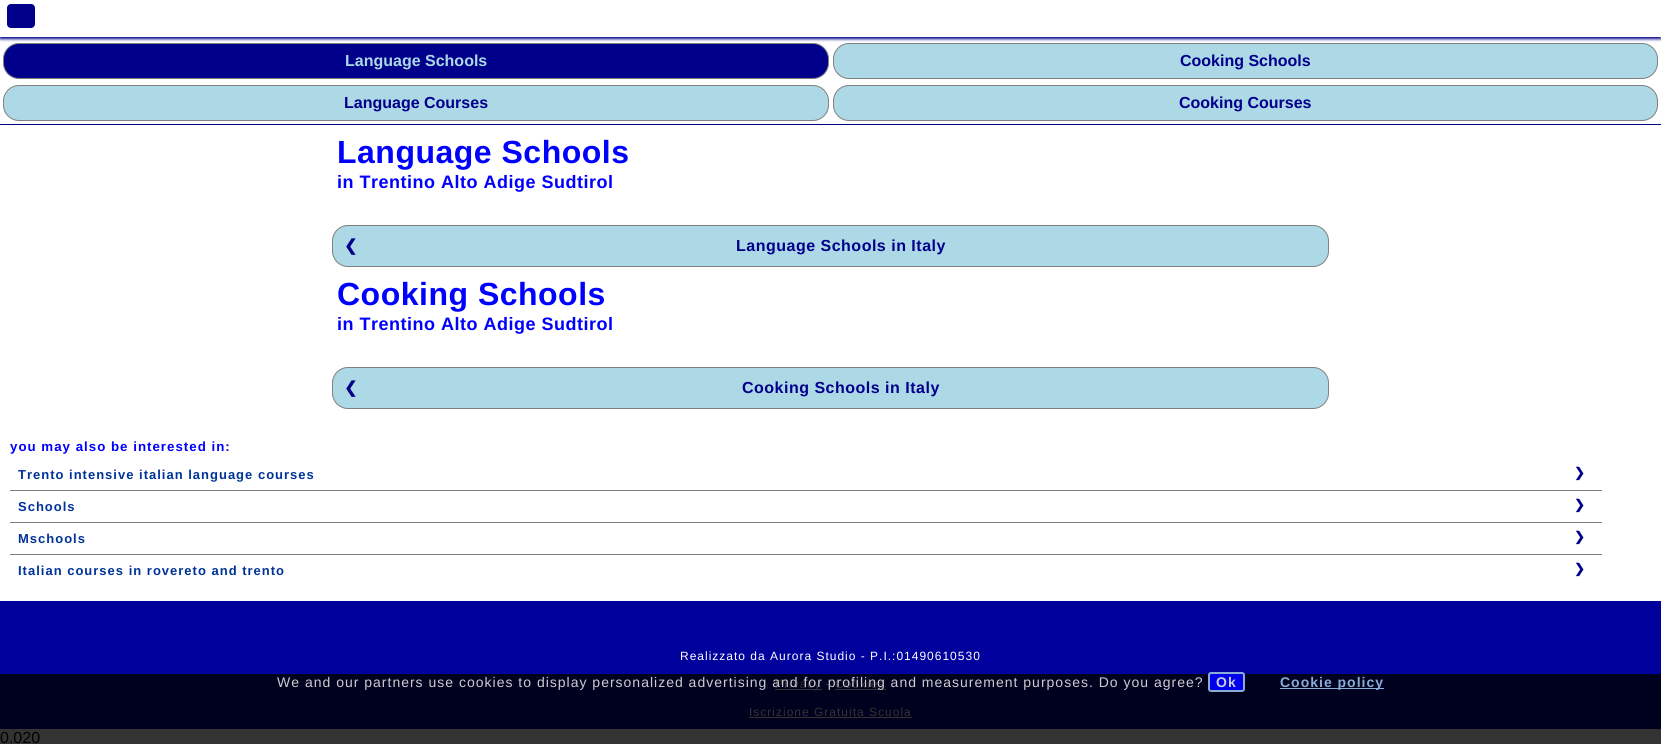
#include <cairo.h>
#include <math.h>
#include <stddef.h>


static void set_color(cairo_t *cr, unsigned color) {
    cairo_set_source_rgb(cr, (color >> 16) / 255.0, (color >> 8 & 255) / 255.0, (color & 255) / 255.0);
}

static void draw_text(cairo_t *cr, double x, double y, const char *s, const char *family, double size, int italic, int bold, unsigned color) {
    cairo_select_font_face(cr, family, italic ? CAIRO_FONT_SLANT_ITALIC : CAIRO_FONT_SLANT_NORMAL,
        bold ? CAIRO_FONT_WEIGHT_BOLD : CAIRO_FONT_WEIGHT_NORMAL);
    cairo_set_font_size(cr, size);
    set_color(cr, color);
    cairo_move_to(cr, x, y);
    cairo_show_text(cr, s);
}

static void draw_spaced(cairo_t *cr, double x, double y, const char *s, double letter, double word) {
    cairo_move_to(cr, x, y);
    while (*s) {
        char ch[5] = {0};
        int n = 0;
        do ch[n++] = *s++; while ((*s & 0xC0) == 0x80);
        cairo_show_text(cr, ch);
        cairo_rel_move_to(cr, letter + word * (*ch == ' '), 0);
    }
}

static void fill_rect(cairo_t *cr, double x, double y, double w, double h, unsigned color) {
    set_color(cr, color);
    cairo_rectangle(cr, x, y, w, h);
    cairo_fill(cr);
}

static void rounded_rect(cairo_t *cr, double x, double y, double w, double h, double r) {
    cairo_new_sub_path(cr);
    cairo_arc(cr, x + w - r, y + h - r, r, 0, M_PI / 2);
    cairo_arc(cr, x + r, y + h - r, r, M_PI / 2, M_PI);
    cairo_arc(cr, x + r, y + r, r, M_PI, 1.5 * M_PI);
    cairo_arc(cr, x + w - r, y + r, r, 1.5 * M_PI, 2 * M_PI);
    cairo_close_path(cr);
}

static void draw_shadow(cairo_t *cr, double x, double y, double w, double h, double r, double blur, double alpha) {
    cairo_push_group_with_content(cr, CAIRO_CONTENT_ALPHA);
    cairo_set_operator(cr, CAIRO_OPERATOR_SOURCE);
    for (int i = 15; i >= -15 && fmin(w, h) + blur * i / 3 > 0; i -= 2) {
        double e = blur * i / 6;
        cairo_set_source_rgba(cr, 0, 0, 0, alpha * erfc((i - 1) / 8.5) / 2);
        rounded_rect(cr, x - e, y - e, w + 2 * e, h + 2 * e, fmax(0, fmin(r + e + blur * .6, fmin(w, h) / 2 + e)));
        cairo_fill(cr);
    }
    cairo_pattern_t *soft = cairo_pop_group(cr);
    cairo_mask(cr, soft);
    cairo_pattern_destroy(soft);
}

int main(void) {
    cairo_surface_t *surface = cairo_image_surface_create(CAIRO_FORMAT_RGB24, 1661, 744);
    cairo_t *cr = cairo_create(surface);
    cairo_font_options_t *options = cairo_font_options_create();
    cairo_font_options_set_hint_metrics(options, CAIRO_HINT_METRICS_OFF);
    cairo_font_options_set_hint_style(options, CAIRO_HINT_STYLE_NONE);
    cairo_set_font_options(cr, options);
    cairo_set_miter_limit(cr, 4);
    set_color(cr, 0xFFFFFF);
    cairo_paint(cr);
    fill_rect(cr, 0, 729, 1661, 15, 0x333333);
    fill_rect(cr, 0, 124, 1661, 1, 0x00008B);
    cairo_save(cr);
    cairo_rectangle(cr, 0, 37, 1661, 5);
    cairo_clip(cr);
    set_color(cr, 0x00008B);
    draw_shadow(cr, 0, -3, 1661, 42, 0, 1.5, 1);
    cairo_restore(cr);
    rounded_rect(cr, 7, 4, 28, 24, 4);
    cairo_fill(cr);
    rounded_rect(cr, 3.5, 43.5, 825, 35, 15.5);
    cairo_fill_preserve(cr);
    set_color(cr, 0x808080);
    cairo_set_line_width(cr, 1);
    cairo_stroke(cr);
    draw_text(cr, 345, 66, "Language Schools", "Liberation Sans", 16, 0, 1, 0xADD8E6);
    rounded_rect(cr, 833.5, 43.5, 824, 35, 15.5);
    cairo_fill_preserve(cr);
    set_color(cr, 0x808080);
    cairo_stroke(cr);
    draw_text(cr, 1180, 66, "Cooking Schools", "Liberation Sans", 16, 0, 1, 0x00008B);
    set_color(cr, 0xADD8E6);
    rounded_rect(cr, 3.5, 85.5, 825, 35, 15.5);
    cairo_fill_preserve(cr);
    set_color(cr, 0x808080);
    cairo_stroke(cr);
    draw_text(cr, 344, 108, "Language Courses", "Liberation Sans", 16, 0, 1, 0x00008B);
    set_color(cr, 0xADD8E6);
    rounded_rect(cr, 833.5, 85.5, 824, 35, 15.5);
    cairo_fill_preserve(cr);
    set_color(cr, 0x808080);
    cairo_stroke(cr);
    draw_text(cr, 1179, 108, "Cooking Courses", "Liberation Sans", 16, 0, 1, 0x00008B);
    cairo_set_font_size(cr, 32);
    set_color(cr, 0x0000FF);
    draw_spaced(cr, 337, 163, "Language Schools", 0.5, 0);
    cairo_set_font_size(cr, 18);
    draw_spaced(cr, 337, 188, "in Trentino Alto Adige Sudtirol", 0.5, 0);
    set_color(cr, 0xADD8E6);
    rounded_rect(cr, 332.5, 225.5, 996, 41, 15.5);
    cairo_fill_preserve(cr);
    set_color(cr, 0x808080);
    cairo_stroke(cr);
    cairo_select_font_face(cr, "DejaVu Sans", CAIRO_FONT_SLANT_NORMAL, CAIRO_FONT_WEIGHT_BOLD);
    cairo_set_font_size(cr, 16);
    set_color(cr, 0x00008B);
    draw_spaced(cr, 344, 251, "❮", 0.5, 0);
    cairo_select_font_face(cr, "Liberation Sans", CAIRO_FONT_SLANT_NORMAL, CAIRO_FONT_WEIGHT_BOLD);
    draw_spaced(cr, 736, 251, "Language Schools in Italy", 0.5, 0);
    cairo_set_font_size(cr, 32);
    set_color(cr, 0x0000FF);
    draw_spaced(cr, 337, 305, "Cooking Schools", 0.5, 0);
    cairo_set_font_size(cr, 18);
    draw_spaced(cr, 337, 330, "in Trentino Alto Adige Sudtirol", 0.5, 0);
    set_color(cr, 0xADD8E6);
    rounded_rect(cr, 332.5, 367.5, 996, 41, 15.5);
    cairo_fill_preserve(cr);
    set_color(cr, 0x808080);
    cairo_stroke(cr);
    cairo_select_font_face(cr, "DejaVu Sans", CAIRO_FONT_SLANT_NORMAL, CAIRO_FONT_WEIGHT_BOLD);
    cairo_set_font_size(cr, 16);
    set_color(cr, 0x00008B);
    draw_spaced(cr, 344, 393, "❮", 0.5, 0);
    cairo_select_font_face(cr, "Liberation Sans", CAIRO_FONT_SLANT_NORMAL, CAIRO_FONT_WEIGHT_BOLD);
    draw_spaced(cr, 742, 393, "Cooking Schools in Italy", 0.5, 0);
    cairo_set_font_size(cr, 13.3);
    set_color(cr, 0x0000FF);
    draw_spaced(cr, 10, 451, "you may also be interested in:", 1, 0);
    fill_rect(cr, 10, 490, 1592, 1, 0x808080);
    cairo_set_font_size(cr, 13);
    set_color(cr, 0x003399);
    draw_spaced(cr, 18, 479, "Trento intensive italian language courses", 1, 0);
    cairo_select_font_face(cr, "DejaVu Sans", CAIRO_FONT_SLANT_NORMAL, CAIRO_FONT_WEIGHT_BOLD);
    set_color(cr, 0x00008B);
    draw_spaced(cr, 1574, 477, "❯", 1, 0);
    fill_rect(cr, 10, 522, 1592, 1, 0x808080);
    cairo_select_font_face(cr, "Liberation Sans", CAIRO_FONT_SLANT_NORMAL, CAIRO_FONT_WEIGHT_BOLD);
    set_color(cr, 0x003399);
    draw_spaced(cr, 18, 511, "Schools", 1, 0);
    cairo_select_font_face(cr, "DejaVu Sans", CAIRO_FONT_SLANT_NORMAL, CAIRO_FONT_WEIGHT_BOLD);
    set_color(cr, 0x00008B);
    draw_spaced(cr, 1574, 509, "❯", 1, 0);
    fill_rect(cr, 10, 554, 1592, 1, 0x808080);
    cairo_select_font_face(cr, "Liberation Sans", CAIRO_FONT_SLANT_NORMAL, CAIRO_FONT_WEIGHT_BOLD);
    set_color(cr, 0x003399);
    draw_spaced(cr, 18, 543, "Mschools", 1, 0);
    cairo_select_font_face(cr, "DejaVu Sans", CAIRO_FONT_SLANT_NORMAL, CAIRO_FONT_WEIGHT_BOLD);
    set_color(cr, 0x00008B);
    draw_spaced(cr, 1574, 541, "❯", 1, 0);
    cairo_select_font_face(cr, "Liberation Sans", CAIRO_FONT_SLANT_NORMAL, CAIRO_FONT_WEIGHT_BOLD);
    set_color(cr, 0x003399);
    draw_spaced(cr, 18, 575, "Italian courses in rovereto and trento", 1, 0);
    cairo_select_font_face(cr, "DejaVu Sans", CAIRO_FONT_SLANT_NORMAL, CAIRO_FONT_WEIGHT_BOLD);
    set_color(cr, 0x00008B);
    draw_spaced(cr, 1574, 573, "❯", 1, 0);
    fill_rect(cr, 0, 601, 1661, 73, 0x00009C);
    fill_rect(cr, 0, 674, 1661, 55, 0x00001F);
    cairo_select_font_face(cr, "Liberation Sans", CAIRO_FONT_SLANT_NORMAL, CAIRO_FONT_WEIGHT_NORMAL);
    cairo_set_font_size(cr, 12);
    set_color(cr, 0xFFFFFF);
    draw_spaced(cr, 680, 660, "Realizzato da Aurora Studio - P.I.:01490610530", 1, 0);
    fill_rect(cr, 775, 689, 47, 1, 0x333333);
    draw_spaced(cr, 775, 688, "Privacy - Cookies", 1, 0);
    fill_rect(cr, 835, 689, 51, 1, 0x333333);
    draw_spaced(cr, 749, 716, "Iscrizione Gratuita Scuola", 1, 0);
    fill_rect(cr, 749, 717, 163, 1, 0x333333);
    cairo_set_font_size(cr, 14);
    set_color(cr, 0xCCCCD2);
    draw_spaced(cr, 277, 687, "We and our partners use cookies to display personalized advertising and for profiling and measurement purposes. Do you agree?", 1, 0);
    set_color(cr, 0x0000EB);
    rounded_rect(cr, 1209, 673, 35, 18, 2);
    cairo_fill_preserve(cr);
    set_color(cr, 0x8AADD7);
    cairo_set_line_width(cr, 2);
    cairo_stroke(cr);
    cairo_select_font_face(cr, "Liberation Sans", CAIRO_FONT_SLANT_NORMAL, CAIRO_FONT_WEIGHT_BOLD);
    set_color(cr, 0xCCCCEB);
    draw_spaced(cr, 1216, 687, "Ok", 1, 0);
    fill_rect(cr, 1280, 688, 104, 1, 0x8AADD7);
    draw_spaced(cr, 1280, 687, "Cookie policy", 1, 0);
    draw_text(cr, 0, 743, "0.020", "Liberation Sans", 16, 0, 0, 0x000000);
    cairo_surface_write_to_png(surface, "output.png");
    cairo_font_options_destroy(options);
    cairo_destroy(cr);
    cairo_surface_destroy(surface);
    return 0;
}
